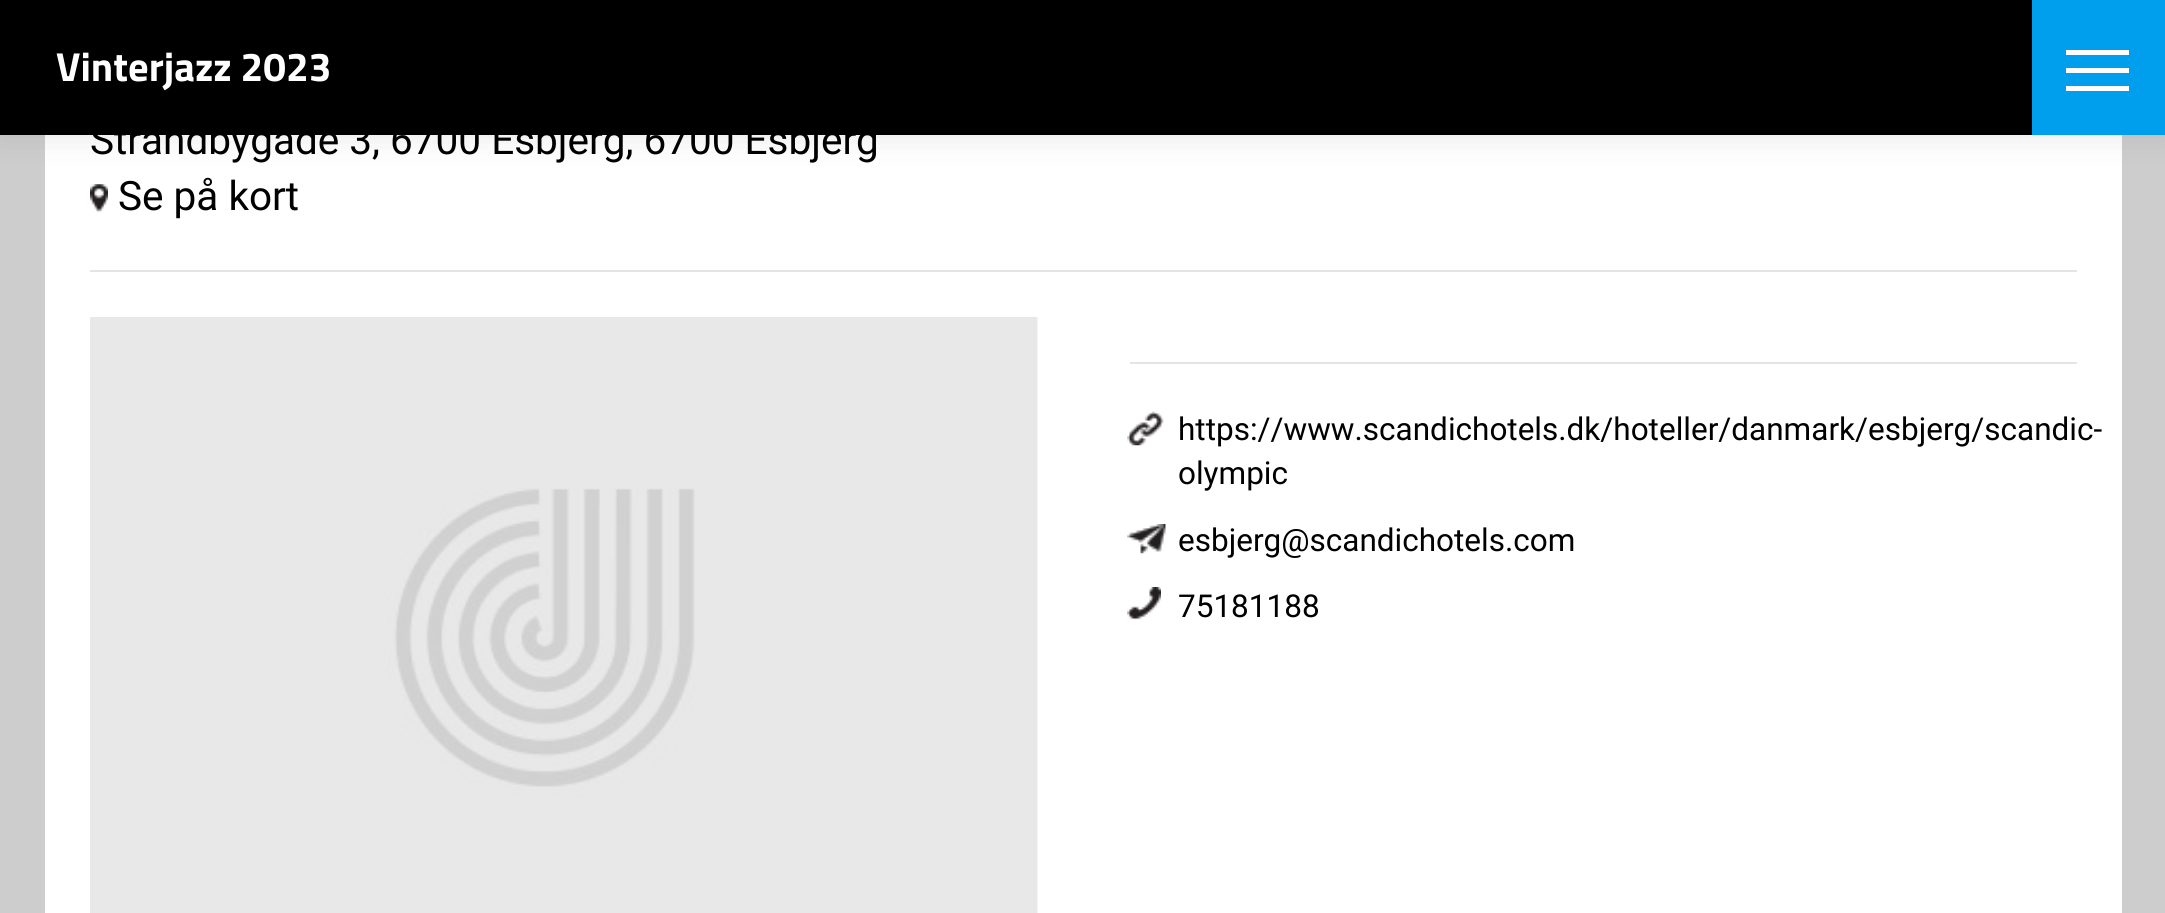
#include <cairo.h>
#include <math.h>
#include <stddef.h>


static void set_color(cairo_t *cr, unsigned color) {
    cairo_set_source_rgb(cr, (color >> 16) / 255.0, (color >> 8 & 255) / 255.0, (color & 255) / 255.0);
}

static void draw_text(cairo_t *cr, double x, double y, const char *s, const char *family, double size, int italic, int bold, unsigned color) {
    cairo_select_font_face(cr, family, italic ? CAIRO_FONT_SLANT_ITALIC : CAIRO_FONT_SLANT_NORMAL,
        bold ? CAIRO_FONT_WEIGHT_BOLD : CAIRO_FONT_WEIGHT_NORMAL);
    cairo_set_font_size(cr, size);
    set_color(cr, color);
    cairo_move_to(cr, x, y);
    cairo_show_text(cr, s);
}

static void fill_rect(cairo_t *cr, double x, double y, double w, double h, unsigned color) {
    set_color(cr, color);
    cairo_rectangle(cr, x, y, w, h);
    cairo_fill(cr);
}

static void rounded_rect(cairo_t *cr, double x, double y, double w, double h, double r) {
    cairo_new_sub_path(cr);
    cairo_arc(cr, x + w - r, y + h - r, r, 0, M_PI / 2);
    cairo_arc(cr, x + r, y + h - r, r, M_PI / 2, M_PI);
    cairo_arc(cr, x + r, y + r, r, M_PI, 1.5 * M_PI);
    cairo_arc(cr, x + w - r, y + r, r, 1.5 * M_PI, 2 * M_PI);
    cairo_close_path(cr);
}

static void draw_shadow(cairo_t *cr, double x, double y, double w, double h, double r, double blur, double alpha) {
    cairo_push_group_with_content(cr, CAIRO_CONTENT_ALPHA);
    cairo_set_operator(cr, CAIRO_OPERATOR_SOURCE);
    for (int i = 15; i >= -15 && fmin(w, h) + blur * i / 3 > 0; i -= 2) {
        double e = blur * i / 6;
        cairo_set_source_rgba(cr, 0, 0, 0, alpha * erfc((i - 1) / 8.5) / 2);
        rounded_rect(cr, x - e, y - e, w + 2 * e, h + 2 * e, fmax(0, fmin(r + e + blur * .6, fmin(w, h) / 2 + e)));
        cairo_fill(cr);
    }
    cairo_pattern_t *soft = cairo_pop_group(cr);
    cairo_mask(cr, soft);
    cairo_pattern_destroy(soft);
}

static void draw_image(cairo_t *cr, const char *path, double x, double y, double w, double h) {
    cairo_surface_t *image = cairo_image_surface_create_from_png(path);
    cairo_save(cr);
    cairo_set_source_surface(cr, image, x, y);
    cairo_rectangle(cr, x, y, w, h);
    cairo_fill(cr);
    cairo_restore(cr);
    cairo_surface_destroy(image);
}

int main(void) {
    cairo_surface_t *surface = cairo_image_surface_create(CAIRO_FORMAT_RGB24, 2165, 913);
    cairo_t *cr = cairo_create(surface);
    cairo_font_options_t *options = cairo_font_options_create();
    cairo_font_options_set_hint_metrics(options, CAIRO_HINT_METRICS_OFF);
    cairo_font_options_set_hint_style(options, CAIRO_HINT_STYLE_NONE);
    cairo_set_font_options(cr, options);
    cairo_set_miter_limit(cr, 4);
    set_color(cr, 0xCDCDCD);
    cairo_paint(cr);
    fill_rect(cr, 45, 135, 2077, 778, 0xFFFFFF);
    draw_image(cr, "assets/img1.png", 90, 184, 18, 28);
    set_color(cr, 0x000000);
    draw_shadow(cr, 0, 0, 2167, 135, 0, 17, 0.1);
    fill_rect(cr, 0, 0, 2032, 135, 0x000000);
    draw_text(cr, 56, 81, "Vinterjazz 2023", "Titillium Web", 40.5, 0, 1, 0xFFFFFF);
    fill_rect(cr, 2032, 0, 133, 135, 0x009FEE);
    fill_rect(cr, 2066, 50, 63, 5, 0xFFFFFF);
    fill_rect(cr, 2066, 68, 63, 5, 0xFFFFFF);
    fill_rect(cr, 2066, 86, 63, 5, 0xFFFFFF);
    draw_text(cr, 90, 154, "Strandbygade 3, 6700 Esbjerg, 6700 Esbjerg", "Roboto", 40.5, 0, 0, 0x000000);
    draw_text(cr, 118, 210, "Se på kort", "Roboto", 40.5, 0, 0, 0x000000);
    fill_rect(cr, 90, 270, 1987, 2, 0xE4E4E4);
    draw_image(cr, "assets/img2.png", 90, 317, 948, 596);
    fill_rect(cr, 1130, 362, 947, 2, 0xE4E4E4);
    draw_image(cr, "assets/img3.png", 1127, 411, 37, 35);
    draw_text(cr, 1178, 440, "https://www.scandichotels.dk/hoteller/danmark/esbjerg/scandic-", "Roboto", 31.5, 0, 0, 0x000000);
    draw_text(cr, 1178, 484, "olympic", "Roboto", 31.5, 0, 0, 0x000000);
    draw_image(cr, "assets/img4.png", 1127, 524, 39, 30);
    draw_text(cr, 1178, 551, "esbjerg@scandichotels.com", "Roboto", 31.5, 0, 0, 0x000000);
    draw_image(cr, "assets/img5.png", 1127, 587, 34, 33);
    draw_text(cr, 1178, 617, "75181188", "Roboto", 31.5, 0, 0, 0x000000);
    cairo_surface_write_to_png(surface, "output.png");
    cairo_font_options_destroy(options);
    cairo_destroy(cr);
    cairo_surface_destroy(surface);
    return 0;
}
